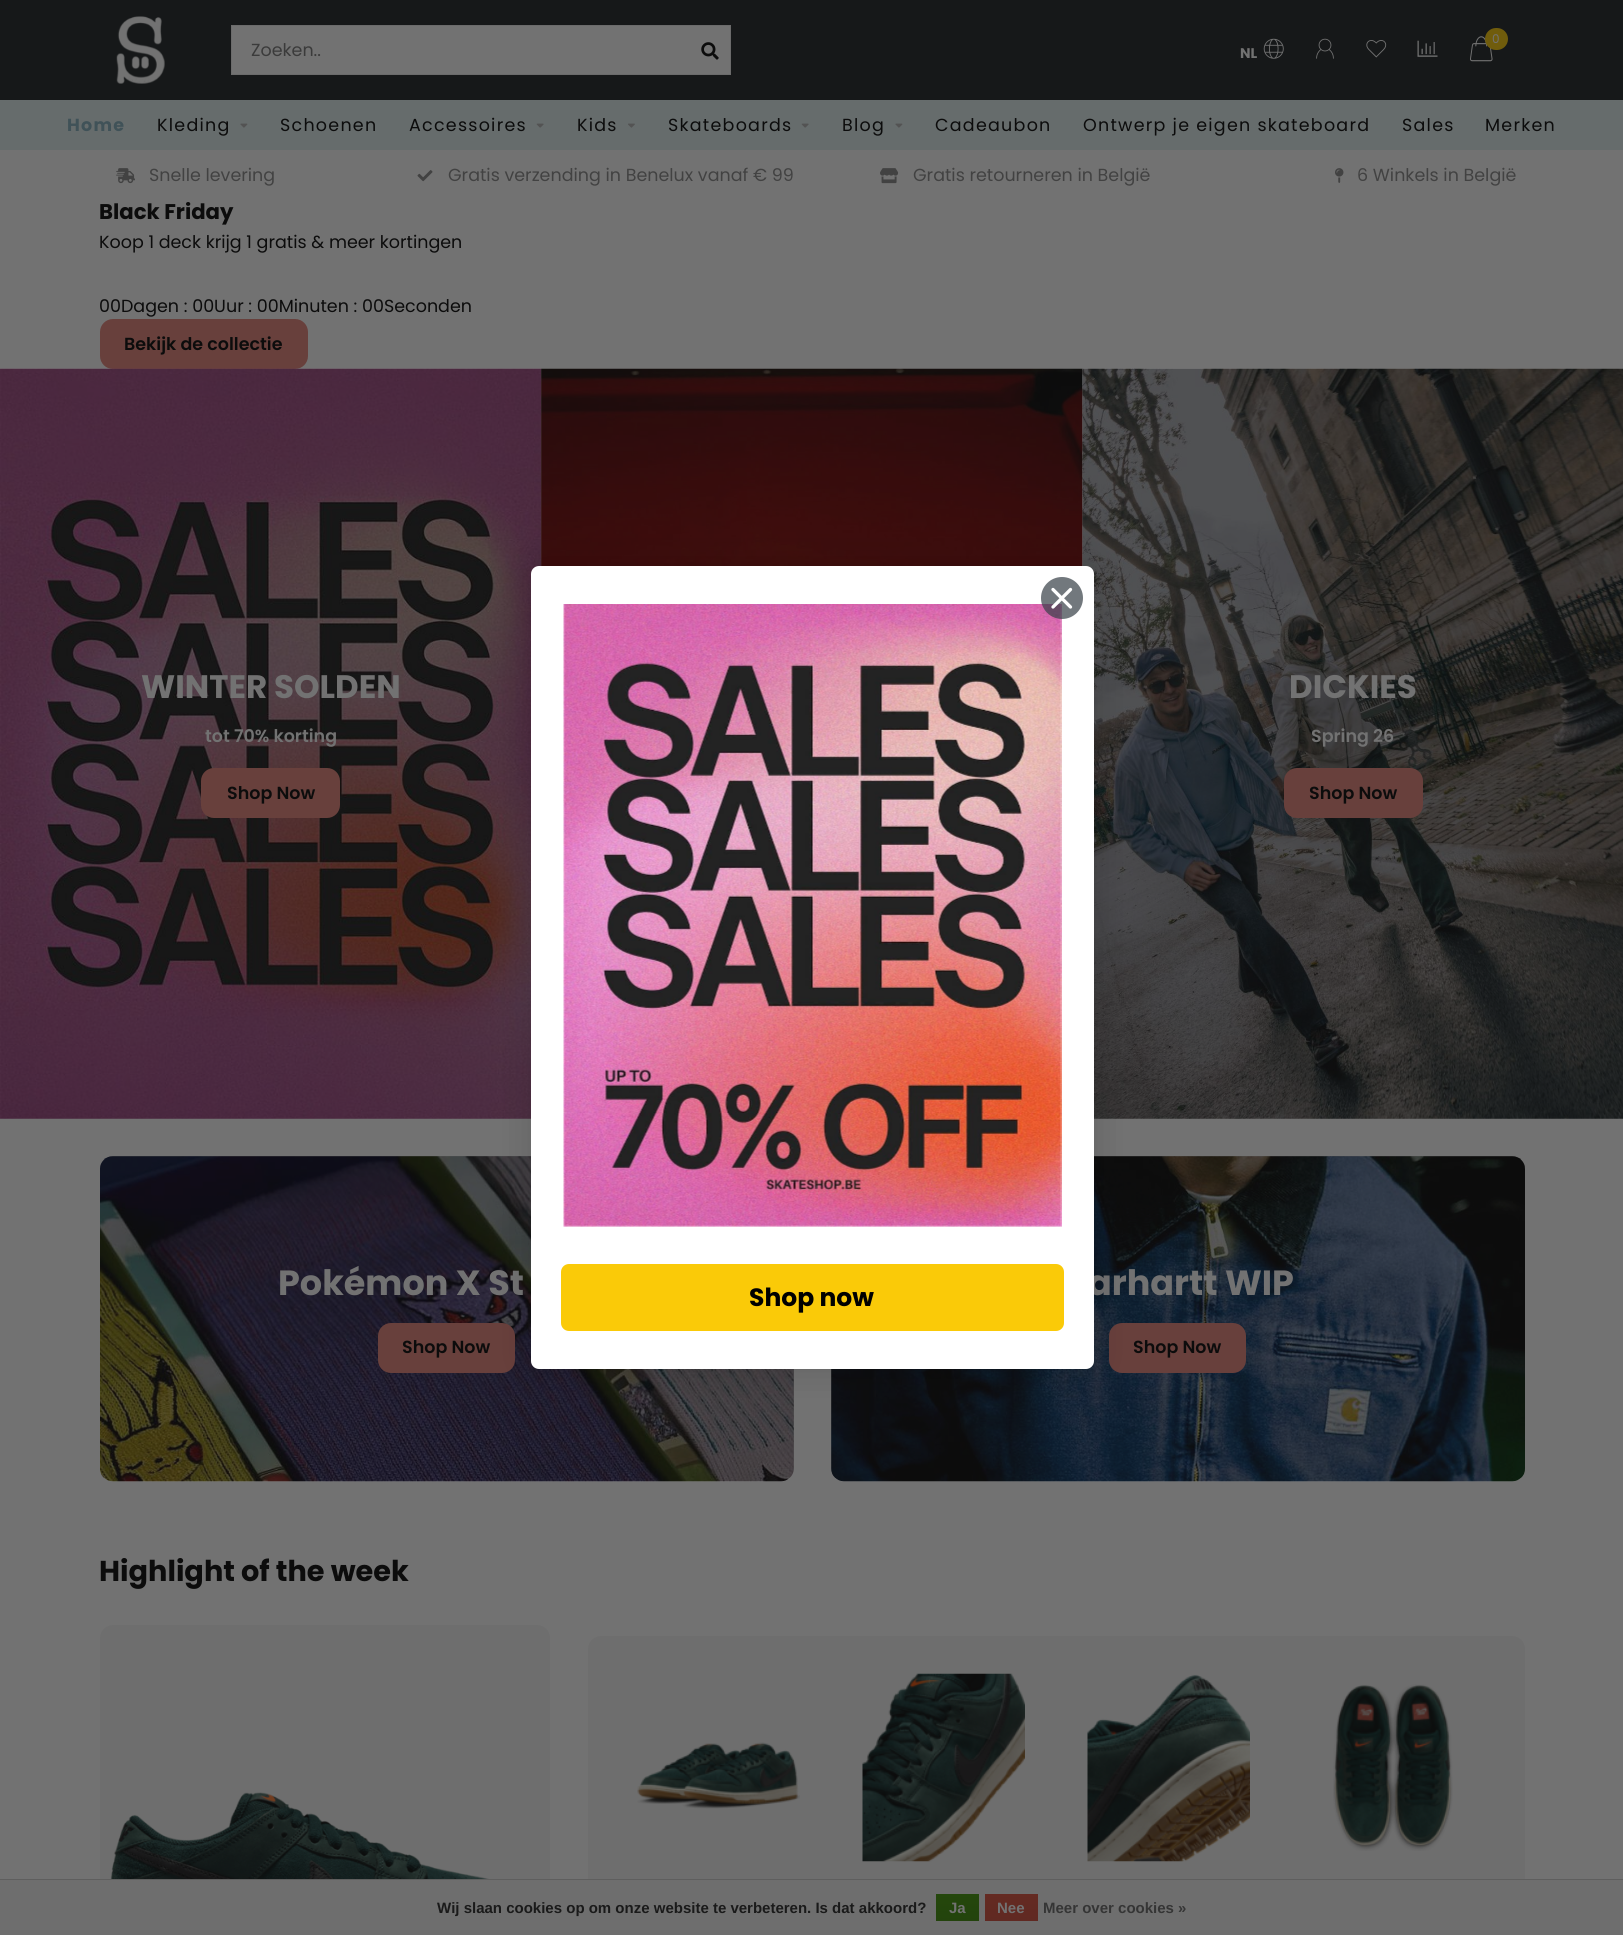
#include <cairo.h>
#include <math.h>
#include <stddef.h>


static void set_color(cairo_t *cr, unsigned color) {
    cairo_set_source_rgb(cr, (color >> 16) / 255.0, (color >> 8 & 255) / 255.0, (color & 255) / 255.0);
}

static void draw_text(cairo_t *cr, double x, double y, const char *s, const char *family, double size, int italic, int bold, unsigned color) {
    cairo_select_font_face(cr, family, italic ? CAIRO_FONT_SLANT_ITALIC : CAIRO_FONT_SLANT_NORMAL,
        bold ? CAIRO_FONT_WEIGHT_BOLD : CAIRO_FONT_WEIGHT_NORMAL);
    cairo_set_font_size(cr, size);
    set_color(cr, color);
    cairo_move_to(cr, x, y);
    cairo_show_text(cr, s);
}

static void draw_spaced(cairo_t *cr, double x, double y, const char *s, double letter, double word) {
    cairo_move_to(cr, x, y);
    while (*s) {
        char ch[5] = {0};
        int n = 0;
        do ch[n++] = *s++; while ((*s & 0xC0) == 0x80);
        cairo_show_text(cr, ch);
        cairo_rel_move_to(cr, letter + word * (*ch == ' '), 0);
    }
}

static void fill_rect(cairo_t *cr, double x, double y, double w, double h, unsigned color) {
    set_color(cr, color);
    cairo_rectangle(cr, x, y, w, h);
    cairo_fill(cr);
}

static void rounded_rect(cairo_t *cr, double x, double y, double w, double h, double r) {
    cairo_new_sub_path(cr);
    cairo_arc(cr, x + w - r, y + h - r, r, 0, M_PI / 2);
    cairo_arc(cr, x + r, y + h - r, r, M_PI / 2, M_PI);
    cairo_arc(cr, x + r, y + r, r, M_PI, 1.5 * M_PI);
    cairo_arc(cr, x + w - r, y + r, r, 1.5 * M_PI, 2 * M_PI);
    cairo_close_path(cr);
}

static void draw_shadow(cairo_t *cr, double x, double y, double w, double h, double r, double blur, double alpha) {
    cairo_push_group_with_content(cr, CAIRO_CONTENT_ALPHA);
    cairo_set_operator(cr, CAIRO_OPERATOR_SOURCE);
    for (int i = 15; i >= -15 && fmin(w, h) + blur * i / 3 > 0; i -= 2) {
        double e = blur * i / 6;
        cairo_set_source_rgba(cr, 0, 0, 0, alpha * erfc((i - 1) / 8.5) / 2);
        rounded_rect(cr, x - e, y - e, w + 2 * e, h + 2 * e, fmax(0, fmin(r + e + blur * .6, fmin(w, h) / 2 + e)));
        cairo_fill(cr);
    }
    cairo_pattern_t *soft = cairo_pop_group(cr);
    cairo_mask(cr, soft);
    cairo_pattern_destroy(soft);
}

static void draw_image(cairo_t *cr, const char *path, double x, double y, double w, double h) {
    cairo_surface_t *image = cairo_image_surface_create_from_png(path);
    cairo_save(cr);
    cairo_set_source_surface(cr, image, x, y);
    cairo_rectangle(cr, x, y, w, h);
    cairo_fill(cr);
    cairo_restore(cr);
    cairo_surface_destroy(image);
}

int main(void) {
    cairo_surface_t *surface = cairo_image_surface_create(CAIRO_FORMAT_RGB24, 1623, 1935);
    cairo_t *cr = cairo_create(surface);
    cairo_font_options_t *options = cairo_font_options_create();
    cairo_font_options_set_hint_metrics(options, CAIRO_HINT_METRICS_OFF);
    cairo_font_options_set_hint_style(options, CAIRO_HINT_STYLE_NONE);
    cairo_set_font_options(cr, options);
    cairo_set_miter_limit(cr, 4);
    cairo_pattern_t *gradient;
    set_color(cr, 0x727272);
    cairo_paint(cr);
    fill_rect(cr, 0, 0, 1623, 100, 0x161819);
    draw_image(cr, "assets/img1.png", 116, 16, 49, 68);
    set_color(cr, 0x727272);
    cairo_rectangle(cr, 231.5, 25.5, 499, 49);
    cairo_fill_preserve(cr);
    set_color(cr, 0x6B6B6B);
    cairo_set_line_width(cr, 1);
    cairo_stroke(cr);
    draw_text(cr, 251, 56, "Zoeken..", "Poppins", 17.5, 0, 0, 0x3B3B3B);
    draw_image(cr, "assets/img2.png", 701, 42, 18, 18);
    draw_image(cr, "assets/img3.png", 1470, 36, 23, 26);
    set_color(cr, 0x705C0C);
    rounded_rect(cr, 1485, 28, 23, 22, 11);
    cairo_fill(cr);
    draw_text(cr, 1492, 43, "0", "Poppins", 12, 0, 0, 0x727272);
    draw_text(cr, 1240, 58, "NL", "Poppins", 14, 0, 1, 0x727272);
    draw_image(cr, "assets/img4.png", 1263, 38, 21, 21);
    draw_image(cr, "assets/img5.png", 1316, 38, 18, 21);
    draw_image(cr, "assets/img6.png", 1366, 40, 21, 18);
    draw_image(cr, "assets/img7.png", 1417, 40, 21, 17);
    fill_rect(cr, 0, 100, 1623, 50, 0x666C6C);
    cairo_set_font_size(cr, 17.5);
    set_color(cr, 0x405258);
    draw_spaced(cr, 67, 131, "Home", 1.25, 0);
    cairo_select_font_face(cr, "Poppins", CAIRO_FONT_SLANT_NORMAL, CAIRO_FONT_WEIGHT_NORMAL);
    set_color(cr, 0x0C0C0C);
    draw_spaced(cr, 157, 131, "Kleding", 1.25, 0);
    draw_image(cr, "assets/img8.png", 240, 123, 8, 5);
    draw_spaced(cr, 280, 131, "Schoenen", 1.25, 0);
    draw_spaced(cr, 409, 131, "Accessoires", 1.25, 0);
    draw_image(cr, "assets/img9.png", 536, 123, 8, 5);
    draw_spaced(cr, 577, 131, "Kids", 1.25, 0);
    draw_image(cr, "assets/img10.png", 628, 123, 7, 5);
    draw_spaced(cr, 668, 131, "Skateboards", 1.25, 0);
    draw_image(cr, "assets/img9.png", 801, 123, 8, 5);
    draw_spaced(cr, 842, 131, "Blog", 1.25, 0);
    draw_image(cr, "assets/img8.png", 895, 123, 8, 5);
    draw_spaced(cr, 935, 131, "Cadeaubon", 1.25, 0);
    draw_spaced(cr, 1083, 131, "Ontwerp je eigen skateboard", 1.25, 0);
    draw_spaced(cr, 1402, 131, "Sales", 1.25, 0);
    draw_spaced(cr, 1485, 131, "Merken", 1.25, 0);
    draw_image(cr, "assets/img11.png", 116, 168, 19, 16);
    draw_text(cr, 149, 181, "Snelle levering", "Poppins", 17.5, 0, 0, 0x424242);
    draw_image(cr, "assets/img12.png", 417, 170, 16, 12);
    draw_text(cr, 448, 181, "Gratis verzending in Benelux vanaf € 99", "Poppins", 17.5, 0, 0, 0x424242);
    draw_image(cr, "assets/img13.png", 880, 168, 19, 16);
    draw_text(cr, 913, 181, "Gratis retourneren in België", "Poppins", 17.5, 0, 0, 0x424242);
    draw_image(cr, "assets/img14.png", 1335, 168, 9, 15);
    draw_text(cr, 1357, 181, "6 Winkels in België", "Poppins", 17.5, 0, 0, 0x424242);
    draw_text(cr, 99, 219, "Black Friday", "Poppins", 21.25, 0, 1, 0x0C0C0C);
    draw_text(cr, 99, 248, "Koop 1 deck krijg 1 gratis & meer kortingen", "Poppins", 17.5, 0, 0, 0x0C0C0C);
    draw_text(cr, 99, 312, "00Dagen : 00Uur : 00Minuten : 00Seconden", "Poppins", 17.5, 0, 0, 0x0C0C0C);
    set_color(cr, 0x68403C);
    rounded_rect(cr, 100, 319, 208, 50, 13);
    cairo_fill(cr);
    draw_text(cr, 124, 350, "Bekijk de collectie", "Poppins SemiBold", 17.5, 0, 0, 0x0C0C0C);
    draw_image(cr, "assets/img16.png", 0, 368, 542, 751);
    draw_image(cr, "assets/img15.png", 541, 368, 542, 198);
    cairo_set_source_rgba(cr, 0.047, 0.047, 0.047, 0.25);
    cairo_rectangle(cr, 541, 369, 542, 197);
    cairo_fill(cr);
    draw_text(cr, 141, 698, "WINTER SOLDEN", "Poppins", 32.5, 0, 1, 0x727272);
    draw_text(cr, 205, 742, "tot 70% korting", "Poppins SemiBold", 17.5, 0, 0, 0x727272);
    set_color(cr, 0x68403C);
    rounded_rect(cr, 201, 768, 139, 50, 13);
    cairo_fill(cr);
    draw_text(cr, 227, 799, "Shop Now", "Poppins SemiBold", 17.5, 0, 0, 0x0C0C0C);
    draw_image(cr, "assets/img17.png", 1082, 368, 541, 751);
    draw_text(cr, 1289, 698, "DICKIES", "Poppins", 32.5, 0, 1, 0x727272);
    draw_text(cr, 1311, 742, "Spring 26", "Poppins SemiBold", 17.5, 0, 0, 0x727272);
    set_color(cr, 0x68403C);
    rounded_rect(cr, 1284, 768, 139, 50, 13);
    cairo_fill(cr);
    draw_text(cr, 1309, 799, "Shop Now", "Poppins SemiBold", 17.5, 0, 0, 0x0C0C0C);
    draw_image(cr, "assets/img18.png", 100, 1156, 694, 326);
    cairo_set_source_rgba(cr, 0.047, 0.047, 0.047, 0.25);
    rounded_rect(cr, 100, 1156, 694, 325, 13);
    cairo_fill(cr);
    draw_text(cr, 278, 1295, "Pokémon X St", "Poppins", 35, 0, 1, 0x727272);
    set_color(cr, 0x68403C);
    rounded_rect(cr, 378, 1323, 137, 50, 13);
    cairo_fill(cr);
    draw_text(cr, 402, 1353, "Shop Now", "Poppins SemiBold", 17.5, 0, 0, 0x0C0C0C);
    draw_image(cr, "assets/img19.png", 831, 1156, 694, 326);
    cairo_set_source_rgba(cr, 0.047, 0.047, 0.047, 0.25);
    rounded_rect(cr, 831, 1156, 694, 325, 13);
    cairo_fill(cr);
    draw_text(cr, 1088, 1295, "arhartt WIP", "Poppins", 35, 0, 1, 0x727272);
    set_color(cr, 0x68403C);
    rounded_rect(cr, 1109, 1323, 137, 50, 13);
    cairo_fill(cr);
    draw_text(cr, 1133, 1353, "Shop Now", "Poppins SemiBold", 17.5, 0, 0, 0x0C0C0C);
    draw_text(cr, 99, 1581, "Highlight of the week", "Poppins", 28.75, 0, 1, 0x0C0C0C);
    set_color(cr, 0x6E6E6E);
    rounded_rect(cr, 100, 1625, 450, 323, 13);
    cairo_fill(cr);
    draw_image(cr, "assets/img20.png", 110, 1792, 379, 87);
    rounded_rect(cr, 588, 1636, 937, 263, 13);
    cairo_fill(cr);
    draw_image(cr, "assets/img21.png", 637, 1742, 163, 67);
    draw_image(cr, "assets/img22.png", 862, 1673, 163, 189);
    draw_image(cr, "assets/img23.png", 1087, 1674, 163, 188);
    draw_image(cr, "assets/img24.png", 1333, 1684, 120, 167);
    fill_rect(cr, 0, 1880, 1623, 55, 0x6E6E6E);
    fill_rect(cr, 0, 1879, 1623, 1, 0x5E5E5E);
    draw_text(cr, 437, 1913, "Wij slaan cookies op om onze website te verbeteren. Is dat akkoord?", "Liberation Sans", 15, 0, 1, 0x1A1A1A);
    gradient = cairo_pattern_create_linear(958, 1894, 958, 1921);
    cairo_pattern_add_color_stop_rgba(gradient, 0, 0.141, 0.278, 0.047, 1);
    cairo_pattern_add_color_stop_rgba(gradient, 1, 0.137, 0.263, 0.047, 1);
    cairo_set_source(cr, gradient);
    cairo_pattern_destroy(gradient);
    cairo_rectangle(cr, 936, 1894, 43, 27);
    cairo_fill(cr);
    draw_text(cr, 949, 1913, "Ja", "Liberation Sans", 15, 0, 1, 0x727272);
    gradient = cairo_pattern_create_linear(1011, 1894, 1011, 1921);
    cairo_pattern_add_color_stop_rgba(gradient, 0, 0.392, 0.165, 0.133, 1);
    cairo_pattern_add_color_stop_rgba(gradient, 1, 0.376, 0.161, 0.133, 1);
    cairo_set_source(cr, gradient);
    cairo_pattern_destroy(gradient);
    cairo_rectangle(cr, 985, 1894, 53, 27);
    cairo_fill(cr);
    draw_text(cr, 997, 1913, "Nee", "Liberation Sans", 15, 0, 1, 0x727272);
    draw_text(cr, 1043, 1913, "Meer over cookies »", "Liberation Sans", 15, 0, 1, 0x353535);
    set_color(cr, 0x000000);
    draw_shadow(cr, 531, 566, 563, 803, 8, 19, 0.15);
    set_color(cr, 0xFFFFFF);
    rounded_rect(cr, 531, 566, 563, 803, 8);
    cairo_fill(cr);
    draw_image(cr, "assets/img25.png", 563, 604, 499, 623);
    cairo_set_source_rgba(cr, 0.216, 0.247, 0.278, 0.7);
    cairo_arc(cr, 1062, 598, 21, 0, 2 * M_PI);
    cairo_fill(cr);
    cairo_new_path(cr);
    cairo_move_to(cr, 1053, 589.5);
    cairo_line_to(cr, 1070.5, 607);
    cairo_move_to(cr, 1053, 607);
    cairo_line_to(cr, 1070.5, 589.5);
    cairo_close_path(cr);
    set_color(cr, 0xFFFFFF);
    cairo_set_line_width(cr, 3.3);
    cairo_set_line_cap(cr, CAIRO_LINE_CAP_ROUND);
    cairo_set_line_join(cr, CAIRO_LINE_JOIN_ROUND);
    cairo_stroke(cr);
    set_color(cr, 0xFACA08);
    rounded_rect(cr, 561, 1264, 503, 67, 8);
    cairo_fill(cr);
    draw_text(cr, 749, 1306, "Shop now", "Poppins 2", 25, 0, 1, 0x000000);
    cairo_surface_write_to_png(surface, "output.png");
    cairo_font_options_destroy(options);
    cairo_destroy(cr);
    cairo_surface_destroy(surface);
    return 0;
}
